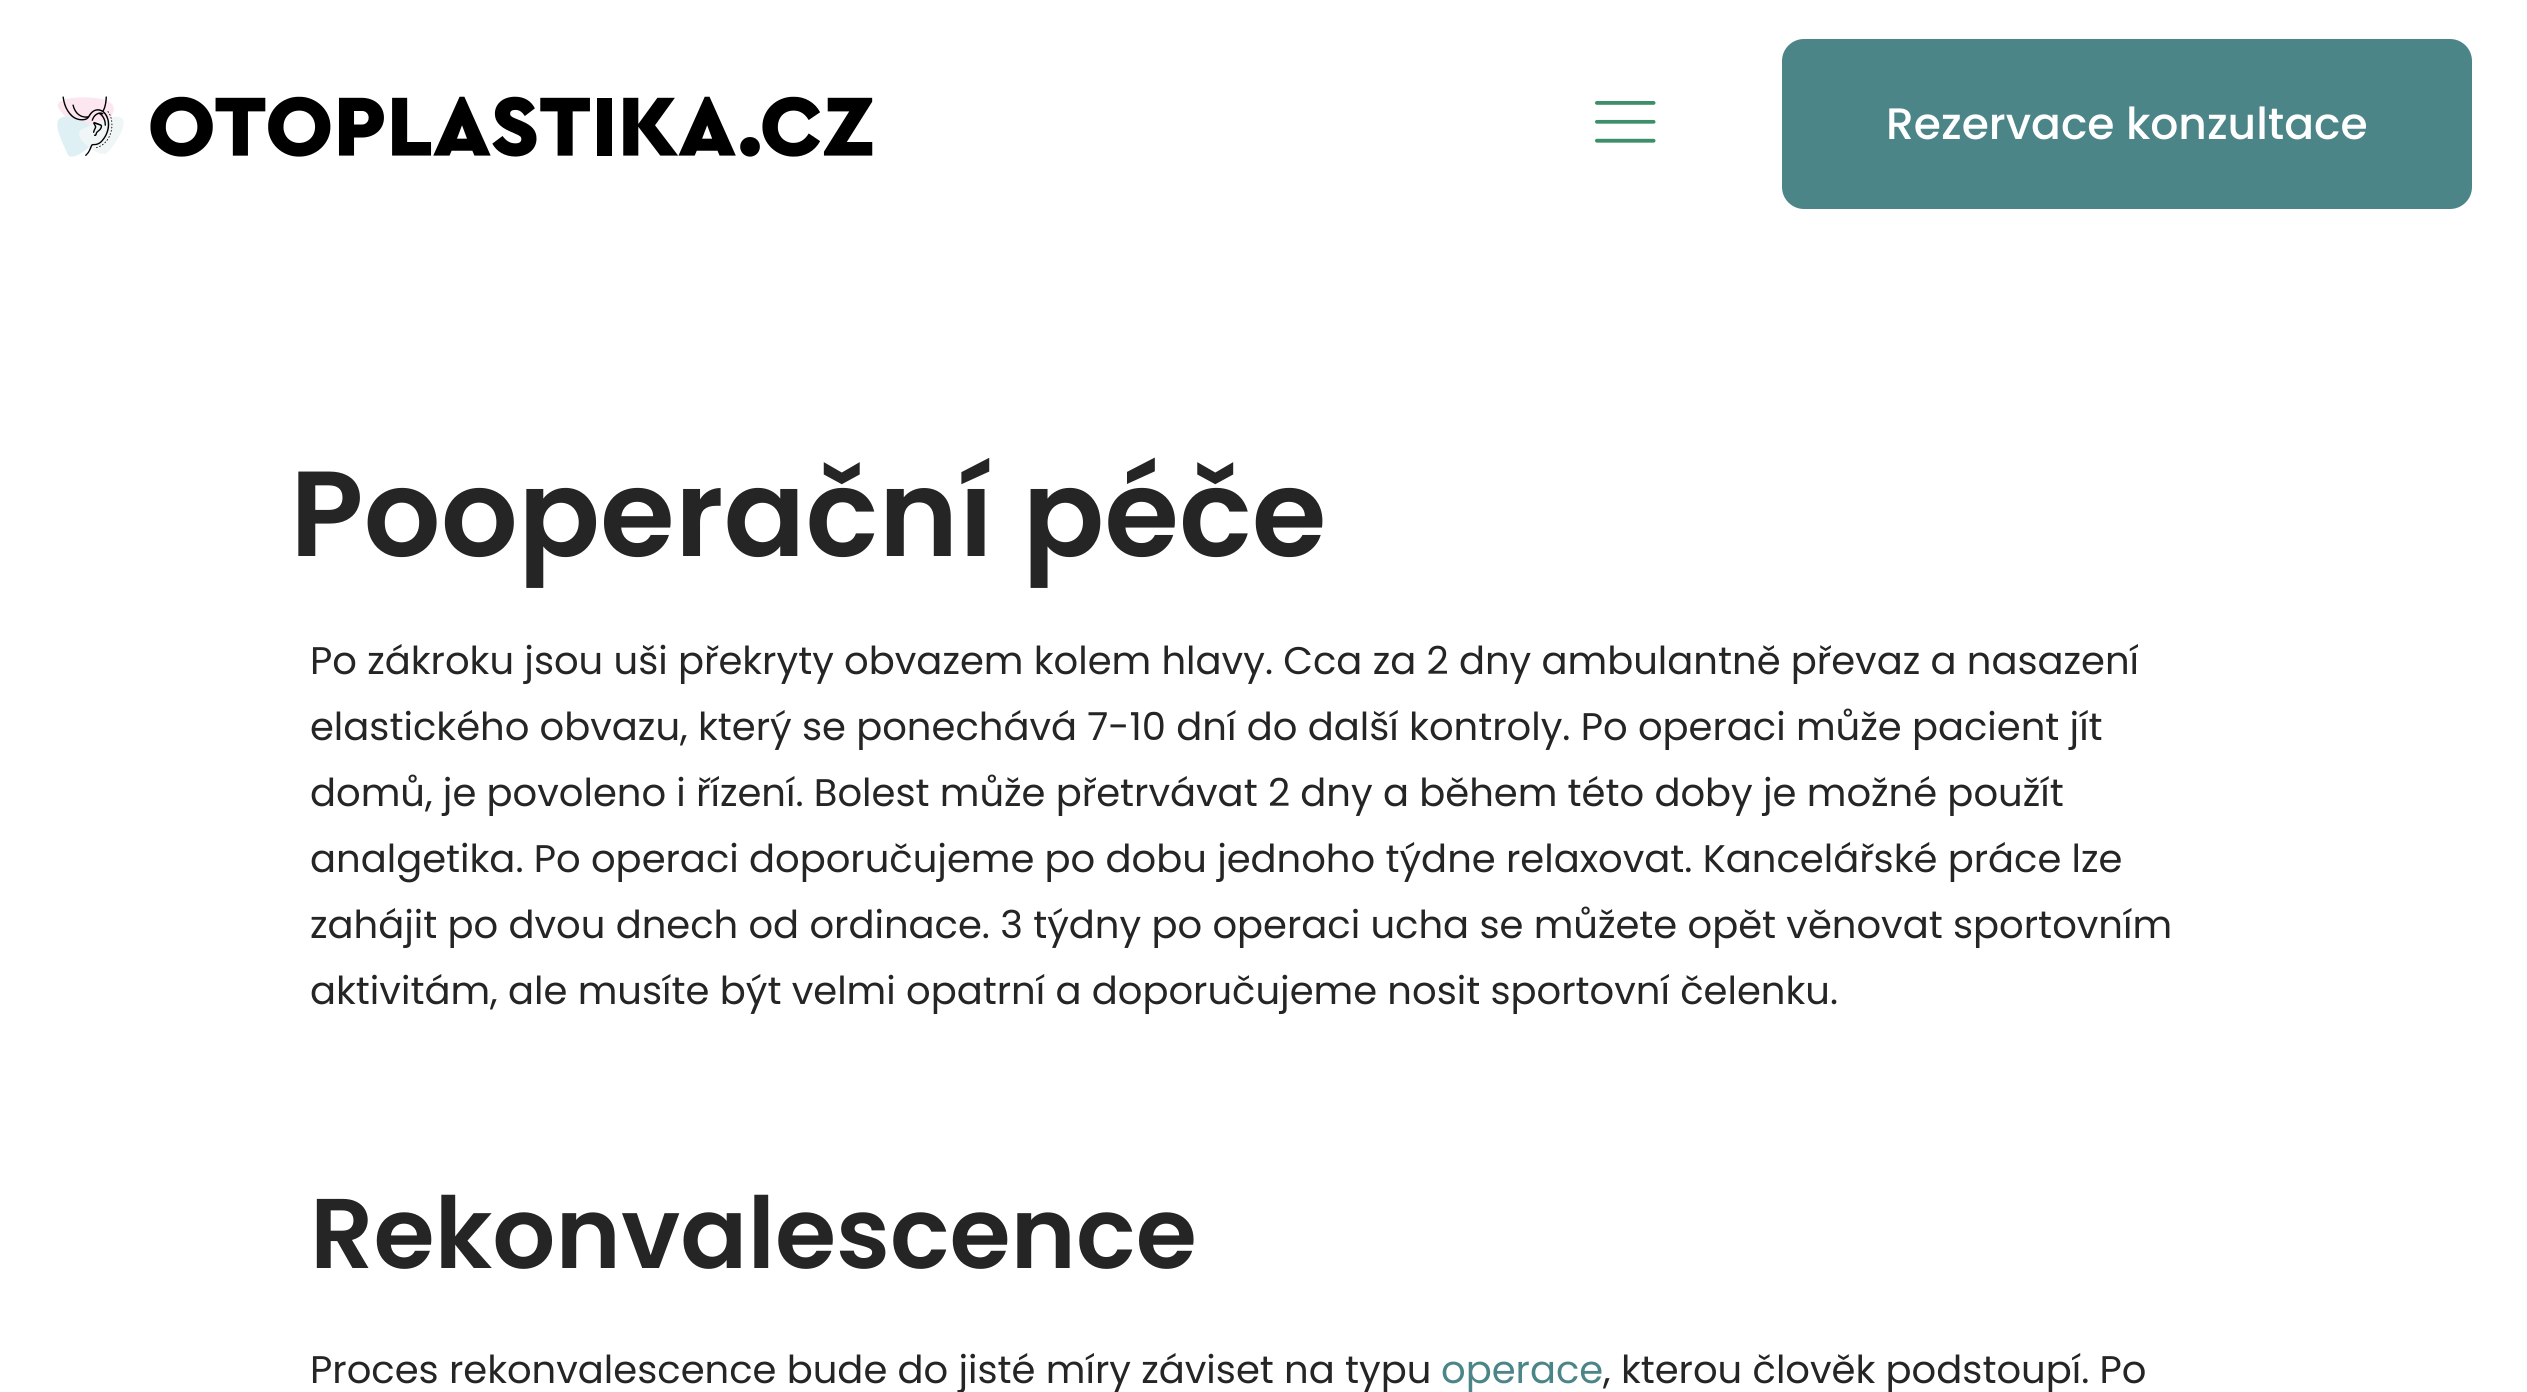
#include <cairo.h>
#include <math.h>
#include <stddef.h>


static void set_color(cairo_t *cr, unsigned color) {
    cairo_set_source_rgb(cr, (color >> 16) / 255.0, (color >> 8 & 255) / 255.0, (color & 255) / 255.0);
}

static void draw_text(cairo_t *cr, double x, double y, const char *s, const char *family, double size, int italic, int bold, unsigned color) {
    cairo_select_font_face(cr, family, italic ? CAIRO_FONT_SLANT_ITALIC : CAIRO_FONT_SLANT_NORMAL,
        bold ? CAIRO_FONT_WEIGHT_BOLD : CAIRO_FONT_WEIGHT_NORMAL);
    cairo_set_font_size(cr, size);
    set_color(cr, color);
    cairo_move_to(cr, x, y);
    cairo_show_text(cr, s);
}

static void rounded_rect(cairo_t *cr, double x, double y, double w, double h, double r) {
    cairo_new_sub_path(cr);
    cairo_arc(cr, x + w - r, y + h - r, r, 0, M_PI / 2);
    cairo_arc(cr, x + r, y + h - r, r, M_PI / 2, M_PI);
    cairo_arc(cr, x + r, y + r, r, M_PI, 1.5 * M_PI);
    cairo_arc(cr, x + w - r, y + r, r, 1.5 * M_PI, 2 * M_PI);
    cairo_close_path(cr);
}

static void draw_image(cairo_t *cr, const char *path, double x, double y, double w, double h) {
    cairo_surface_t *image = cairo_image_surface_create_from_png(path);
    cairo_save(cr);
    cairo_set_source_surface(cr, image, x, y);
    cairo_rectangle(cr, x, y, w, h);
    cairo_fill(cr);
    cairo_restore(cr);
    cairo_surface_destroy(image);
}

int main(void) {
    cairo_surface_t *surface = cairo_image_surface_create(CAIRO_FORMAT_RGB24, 2527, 1392);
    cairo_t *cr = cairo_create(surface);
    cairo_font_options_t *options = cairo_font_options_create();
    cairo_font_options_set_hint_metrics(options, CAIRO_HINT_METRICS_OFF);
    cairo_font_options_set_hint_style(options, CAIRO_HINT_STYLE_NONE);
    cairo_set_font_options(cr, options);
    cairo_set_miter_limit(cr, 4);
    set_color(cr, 0xFFFFFF);
    cairo_paint(cr);
    draw_image(cr, "assets/img1.png", 57, 96, 816, 61);
    draw_image(cr, "assets/img2.png", 1595, 101, 61, 42);
    set_color(cr, 0x4C8587);
    rounded_rect(cr, 1782, 39, 690, 170, 22);
    cairo_fill(cr);
    draw_text(cr, 1886, 139, "Rezervace konzultace", "Poppins Medium", 44, 0, 0, 0xFFFFFF);
    draw_text(cr, 290, 556, "Pooperační péče", "Poppins SemiBold", 121, 0, 0, 0x252525);
    draw_text(cr, 310, 674, "Po zákroku jsou uši překryty obvazem kolem hlavy. Cca za 2 dny ambulantně převaz a nasazení", "Poppins", 38.5, 0, 0, 0x252525);
    draw_text(cr, 310, 740, "elastického obvazu, který se ponechává 7-10 dní do další kontroly. Po operaci může pacient jít", "Poppins", 38.5, 0, 0, 0x252525);
    draw_text(cr, 310, 806, "domů, je povoleno i řízení. Bolest může přetrvávat 2 dny a během této doby je možné použít", "Poppins", 38.5, 0, 0, 0x252525);
    draw_text(cr, 310, 872, "analgetika. Po operaci doporučujeme po dobu jednoho týdne relaxovat. Kancelářské práce lze", "Poppins", 38.5, 0, 0, 0x252525);
    draw_text(cr, 310, 938, "zahájit po dvou dnech od ordinace. 3 týdny po operaci ucha se můžete opět věnovat sportovním", "Poppins", 38.5, 0, 0, 0x252525);
    draw_text(cr, 310, 1004, "aktivitám, ale musíte být velmi opatrní a doporučujeme nosit sportovní čelenku.", "Poppins", 38.5, 0, 0, 0x252525);
    draw_text(cr, 310, 1268, "Rekonvalescence", "Poppins SemiBold", 99, 0, 0, 0x252525);
    draw_text(cr, 310, 1383, "Proces rekonvalescence bude do jisté míry záviset na typu", "Poppins", 38.5, 0, 0, 0x252525);
    draw_text(cr, 1441, 1383, "operace", "Poppins", 38.5, 0, 0, 0x4C8587);
    draw_text(cr, 1603, 1383, ", kterou člověk podstoupí. Po", "Poppins", 38.5, 0, 0, 0x252525);
    cairo_surface_write_to_png(surface, "output.png");
    cairo_font_options_destroy(options);
    cairo_destroy(cr);
    cairo_surface_destroy(surface);
    return 0;
}
